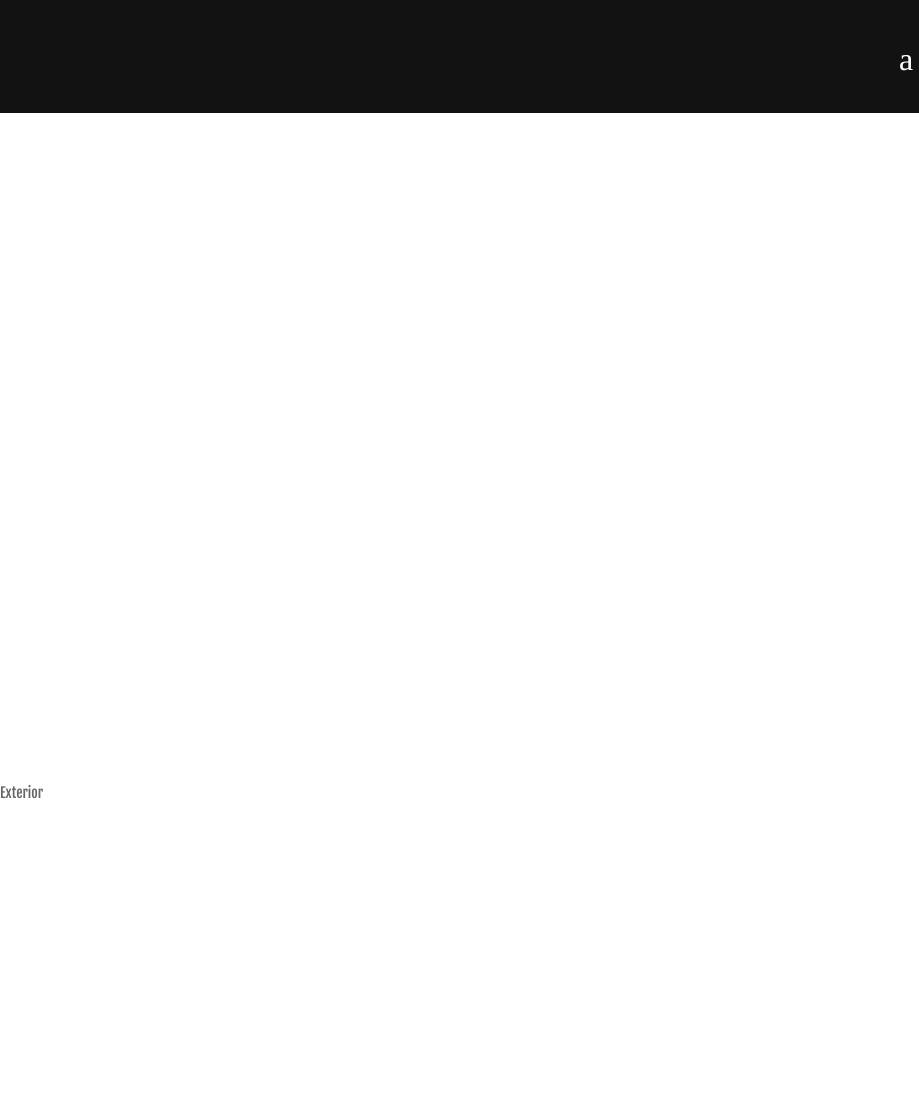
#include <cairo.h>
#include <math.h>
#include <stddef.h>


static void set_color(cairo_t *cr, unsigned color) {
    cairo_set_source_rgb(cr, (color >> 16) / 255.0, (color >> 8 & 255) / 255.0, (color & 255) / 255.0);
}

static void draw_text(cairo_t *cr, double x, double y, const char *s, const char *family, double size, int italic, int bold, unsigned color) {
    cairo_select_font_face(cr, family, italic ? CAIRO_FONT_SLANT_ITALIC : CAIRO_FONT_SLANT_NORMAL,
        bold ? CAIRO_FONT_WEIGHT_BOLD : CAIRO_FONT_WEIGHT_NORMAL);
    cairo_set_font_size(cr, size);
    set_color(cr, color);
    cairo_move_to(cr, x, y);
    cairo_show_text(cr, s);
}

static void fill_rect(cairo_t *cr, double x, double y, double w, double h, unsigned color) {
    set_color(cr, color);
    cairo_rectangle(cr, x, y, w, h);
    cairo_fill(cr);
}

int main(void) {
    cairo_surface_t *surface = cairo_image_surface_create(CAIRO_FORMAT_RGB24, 919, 1103);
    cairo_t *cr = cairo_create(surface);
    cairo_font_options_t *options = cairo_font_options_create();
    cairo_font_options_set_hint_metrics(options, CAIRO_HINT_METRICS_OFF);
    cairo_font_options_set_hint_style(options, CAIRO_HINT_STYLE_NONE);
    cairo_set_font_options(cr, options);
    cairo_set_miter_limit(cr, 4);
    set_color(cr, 0xFFFFFF);
    cairo_paint(cr);
    fill_rect(cr, 0, 0, 919, 113, 0x121212);
    draw_text(cr, 899, 70, "a", "Liberation Serif", 32, 0, 0, 0xFFFFFF);
    draw_text(cr, 0, 798, "Exterior", "Fjalla One", 14, 0, 0, 0x666666);
    cairo_surface_write_to_png(surface, "output.png");
    cairo_font_options_destroy(options);
    cairo_destroy(cr);
    cairo_surface_destroy(surface);
    return 0;
}
